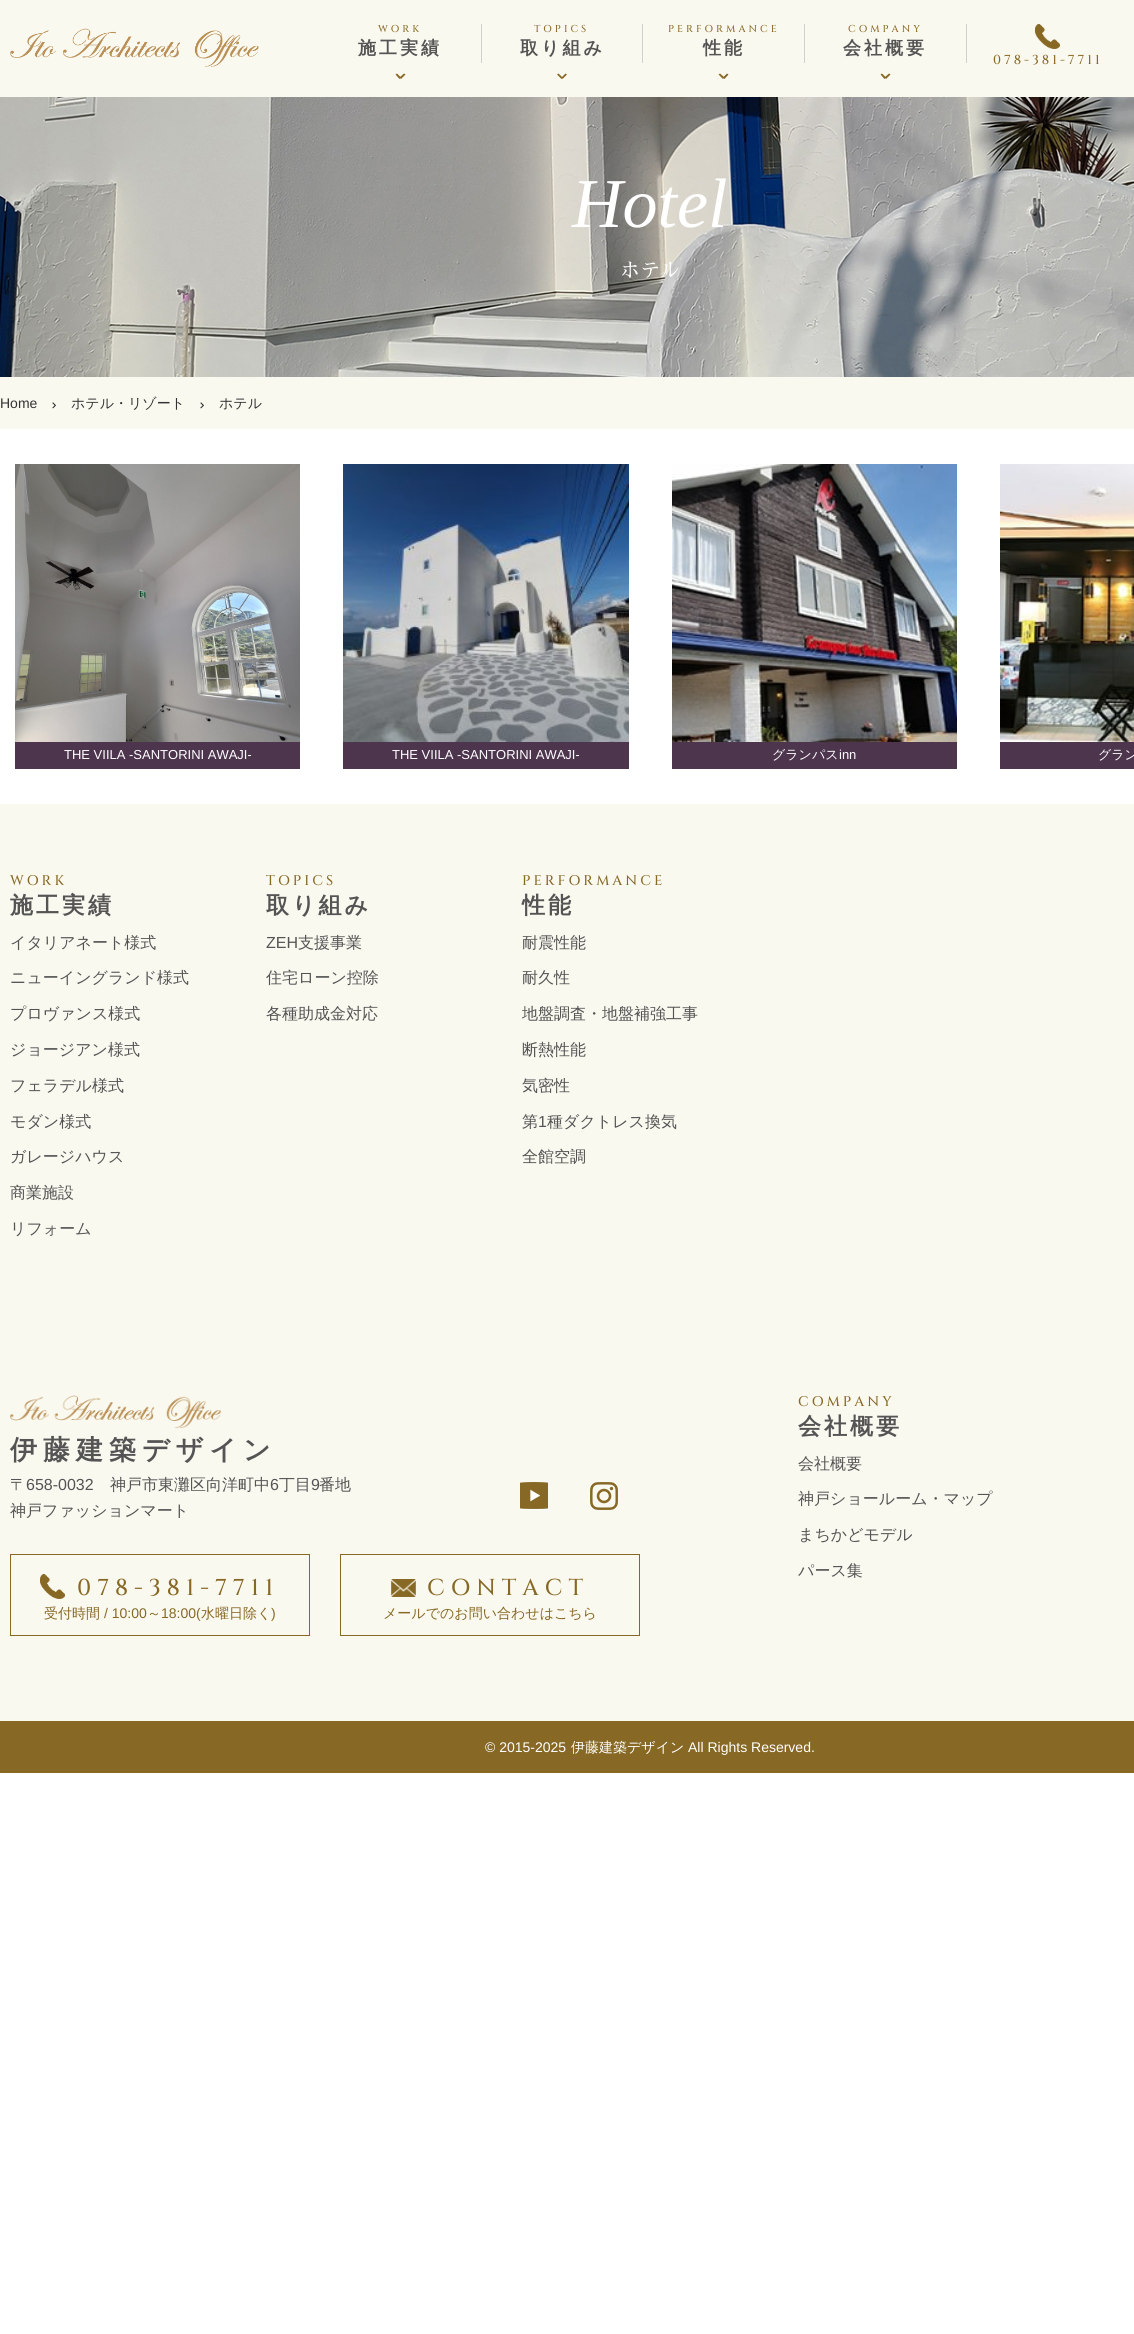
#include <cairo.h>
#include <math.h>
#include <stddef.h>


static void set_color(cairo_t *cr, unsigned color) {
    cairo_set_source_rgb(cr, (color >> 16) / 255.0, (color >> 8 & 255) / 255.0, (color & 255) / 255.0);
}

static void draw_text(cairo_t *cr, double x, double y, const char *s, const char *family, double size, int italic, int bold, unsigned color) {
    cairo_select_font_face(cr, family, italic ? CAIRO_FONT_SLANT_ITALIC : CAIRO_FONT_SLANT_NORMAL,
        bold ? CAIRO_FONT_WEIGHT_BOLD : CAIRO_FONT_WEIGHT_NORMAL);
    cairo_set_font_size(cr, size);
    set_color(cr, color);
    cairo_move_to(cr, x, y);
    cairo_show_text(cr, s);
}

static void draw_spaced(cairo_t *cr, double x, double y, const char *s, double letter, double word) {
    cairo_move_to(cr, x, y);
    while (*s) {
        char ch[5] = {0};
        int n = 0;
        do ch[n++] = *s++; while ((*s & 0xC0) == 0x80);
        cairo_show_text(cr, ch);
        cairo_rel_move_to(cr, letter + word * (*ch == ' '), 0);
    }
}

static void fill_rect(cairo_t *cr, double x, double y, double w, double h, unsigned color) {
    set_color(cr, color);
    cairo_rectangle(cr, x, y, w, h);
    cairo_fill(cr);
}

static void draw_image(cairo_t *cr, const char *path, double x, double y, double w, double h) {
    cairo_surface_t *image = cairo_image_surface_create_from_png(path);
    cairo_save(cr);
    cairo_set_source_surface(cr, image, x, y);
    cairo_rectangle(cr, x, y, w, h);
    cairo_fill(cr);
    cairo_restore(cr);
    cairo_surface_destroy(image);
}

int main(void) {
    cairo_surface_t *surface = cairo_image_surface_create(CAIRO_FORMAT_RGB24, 1134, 2334);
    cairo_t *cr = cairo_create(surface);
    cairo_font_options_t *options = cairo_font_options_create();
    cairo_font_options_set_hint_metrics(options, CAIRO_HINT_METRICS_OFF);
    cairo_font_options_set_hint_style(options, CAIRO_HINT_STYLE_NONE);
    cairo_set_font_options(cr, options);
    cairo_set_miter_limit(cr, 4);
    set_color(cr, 0xFFFFFF);
    cairo_paint(cr);
    fill_rect(cr, 0, 0, 1134, 97, 0xFAF9F0);
    draw_image(cr, "assets/img1.png", 10, 28, 249, 39);
    fill_rect(cr, 481, 24, 1, 39, 0xD0D0D0);
    cairo_select_font_face(cr, "Cinzel Medium", CAIRO_FONT_SLANT_NORMAL, CAIRO_FONT_WEIGHT_NORMAL);
    cairo_set_font_size(cr, 10);
    set_color(cr, 0x876824);
    draw_spaced(cr, 378, 32, "WORK", 3, 0);
    cairo_select_font_face(cr, "WenQuanYi Zen Hei", CAIRO_FONT_SLANT_NORMAL, CAIRO_FONT_WEIGHT_BOLD);
    cairo_set_font_size(cr, 18);
    set_color(cr, 0x545454);
    draw_spaced(cr, 358, 54, "施工実績", 3, 0);
    set_color(cr, 0x876824);
    cairo_new_path(cr);
    cairo_move_to(cr, 405.5, 74.5);
    cairo_line_to(cr, 401, 79);
    cairo_line_to(cr, 399.5, 77.5);
    cairo_line_to(cr, 404, 73.5);
    cairo_close_path(cr);
    cairo_fill(cr);
    cairo_new_path(cr);
    cairo_move_to(cr, 401, 77.5);
    cairo_line_to(cr, 399.5, 79);
    cairo_line_to(cr, 395.5, 74.5);
    cairo_line_to(cr, 397, 73.5);
    cairo_close_path(cr);
    cairo_fill(cr);
    fill_rect(cr, 642, 24, 1, 39, 0xD0D0D0);
    cairo_select_font_face(cr, "Cinzel Medium", CAIRO_FONT_SLANT_NORMAL, CAIRO_FONT_WEIGHT_NORMAL);
    cairo_set_font_size(cr, 10);
    set_color(cr, 0x876824);
    draw_spaced(cr, 534, 32, "TOPICS", 3, 0);
    cairo_select_font_face(cr, "WenQuanYi Zen Hei", CAIRO_FONT_SLANT_NORMAL, CAIRO_FONT_WEIGHT_BOLD);
    cairo_set_font_size(cr, 18);
    set_color(cr, 0x545454);
    draw_spaced(cr, 520, 54, "取り組み", 3, 0);
    set_color(cr, 0x876824);
    cairo_new_path(cr);
    cairo_move_to(cr, 567, 74.5);
    cairo_line_to(cr, 562.5, 79);
    cairo_line_to(cr, 561.5, 77.5);
    cairo_line_to(cr, 565.5, 73.5);
    cairo_close_path(cr);
    cairo_fill(cr);
    cairo_new_path(cr);
    cairo_move_to(cr, 562.5, 77.5);
    cairo_line_to(cr, 561.5, 79);
    cairo_line_to(cr, 557, 74.5);
    cairo_line_to(cr, 558.5, 73.5);
    cairo_close_path(cr);
    cairo_fill(cr);
    fill_rect(cr, 804, 24, 1, 39, 0xD0D0D0);
    cairo_select_font_face(cr, "Cinzel Medium", CAIRO_FONT_SLANT_NORMAL, CAIRO_FONT_WEIGHT_NORMAL);
    cairo_set_font_size(cr, 10);
    set_color(cr, 0x876824);
    draw_spaced(cr, 668, 32, "PERFORMANCE", 3, 0);
    cairo_select_font_face(cr, "WenQuanYi Zen Hei", CAIRO_FONT_SLANT_NORMAL, CAIRO_FONT_WEIGHT_BOLD);
    cairo_set_font_size(cr, 18);
    set_color(cr, 0x545454);
    draw_spaced(cr, 703, 54, "性能", 3, 0);
    set_color(cr, 0x876824);
    cairo_new_path(cr);
    cairo_move_to(cr, 728.5, 74.5);
    cairo_line_to(cr, 724.5, 79);
    cairo_line_to(cr, 723, 77.5);
    cairo_line_to(cr, 727, 73.5);
    cairo_close_path(cr);
    cairo_fill(cr);
    cairo_new_path(cr);
    cairo_move_to(cr, 724.5, 77.5);
    cairo_line_to(cr, 723, 79);
    cairo_line_to(cr, 718.5, 74.5);
    cairo_line_to(cr, 720, 73.5);
    cairo_close_path(cr);
    cairo_fill(cr);
    fill_rect(cr, 966, 24, 1, 39, 0xD0D0D0);
    cairo_select_font_face(cr, "Cinzel Medium", CAIRO_FONT_SLANT_NORMAL, CAIRO_FONT_WEIGHT_NORMAL);
    cairo_set_font_size(cr, 10);
    set_color(cr, 0x876824);
    draw_spaced(cr, 848, 32, "COMPANY", 3, 0);
    cairo_select_font_face(cr, "WenQuanYi Zen Hei", CAIRO_FONT_SLANT_NORMAL, CAIRO_FONT_WEIGHT_BOLD);
    cairo_set_font_size(cr, 18);
    set_color(cr, 0x545454);
    draw_spaced(cr, 843, 54, "会社概要", 3, 0);
    set_color(cr, 0x876824);
    cairo_new_path(cr);
    cairo_move_to(cr, 890.5, 74.5);
    cairo_line_to(cr, 886, 79);
    cairo_line_to(cr, 884.5, 77.5);
    cairo_line_to(cr, 889, 73.5);
    cairo_close_path(cr);
    cairo_fill(cr);
    cairo_new_path(cr);
    cairo_move_to(cr, 886, 77.5);
    cairo_line_to(cr, 884.5, 79);
    cairo_line_to(cr, 880.5, 74.5);
    cairo_line_to(cr, 882, 73.5);
    cairo_close_path(cr);
    cairo_fill(cr);
    draw_image(cr, "assets/img2.png", 1035, 24, 25, 25);
    cairo_select_font_face(cr, "Cinzel Medium", CAIRO_FONT_SLANT_NORMAL, CAIRO_FONT_WEIGHT_NORMAL);
    cairo_set_font_size(cr, 13);
    draw_spaced(cr, 993, 64, "078-381-7711", 3, 0);
    draw_image(cr, "assets/img3.png", 0, 97, 1134, 280);
    draw_text(cr, 572, 227, "Hotel", "Liberation Serif", 70, 1, 0, 0xFFFFFF);
    draw_text(cr, 620, 277, "ホテル", "Sawarabi Mincho", 20, 0, 0, 0xFFFFFF);
    fill_rect(cr, 0, 377, 1134, 52, 0xFAF9F0);
    draw_text(cr, 0, 408, "Home", "Liberation Sans", 14, 0, 0, 0x333333);
    draw_image(cr, "assets/img4.png", 52, 402, 4, 7);
    draw_text(cr, 71, 408, "ホテル・リゾート", "WenQuanYi Zen Hei Medium", 14, 0, 0, 0x333333);
    draw_image(cr, "assets/img4.png", 200, 402, 4, 7);
    draw_text(cr, 219, 408, "ホテル", "WenQuanYi Zen Hei Medium", 14, 0, 0, 0x333333);
    draw_image(cr, "assets/img5.png", 15, 464, 285, 278);
    fill_rect(cr, 15, 742, 285, 27, 0x4D354E);
    draw_text(cr, 64, 759, "THE VIILA ‐SANTORINI AWAJI‐", "Liberation Sans", 13, 0, 0, 0xFFFFFF);
    draw_image(cr, "assets/img6.png", 343, 464, 286, 278);
    fill_rect(cr, 343, 742, 286, 27, 0x4D354E);
    draw_text(cr, 392, 759, "THE VIILA ‐SANTORINI AWAJI‐", "Liberation Sans", 13, 0, 0, 0xFFFFFF);
    draw_image(cr, "assets/img7.png", 672, 464, 285, 278);
    fill_rect(cr, 672, 742, 285, 27, 0x4D354E);
    draw_text(cr, 772, 759, "グランパス", "WenQuanYi Zen Hei Medium", 13, 0, 0, 0xFFFFFF);
    draw_text(cr, 839, 759, "inn", "Liberation Sans", 13, 0, 0, 0xFFFFFF);
    draw_image(cr, "assets/img8.png", 1000, 464, 134, 278);
    fill_rect(cr, 1000, 742, 134, 27, 0x4D354E);
    draw_text(cr, 1098, 759, "グラン", "WenQuanYi Zen Hei Medium", 13, 0, 0, 0xFFFFFF);
    fill_rect(cr, 0, 804, 1134, 917, 0xFAF9F0);
    cairo_select_font_face(cr, "Cinzel Medium", CAIRO_FONT_SLANT_NORMAL, CAIRO_FONT_WEIGHT_NORMAL);
    cairo_set_font_size(cr, 14);
    set_color(cr, 0x876824);
    draw_spaced(cr, 10, 885, "WORK", 3, 0);
    cairo_select_font_face(cr, "WenQuanYi Zen Hei", CAIRO_FONT_SLANT_NORMAL, CAIRO_FONT_WEIGHT_BOLD);
    cairo_set_font_size(cr, 23);
    set_color(cr, 0x545454);
    draw_spaced(cr, 10, 913, "施工実績", 3, 0);
    draw_text(cr, 10, 948, "イタリアネート様式", "WenQuanYi Zen Hei Medium", 16, 0, 0, 0x545454);
    draw_text(cr, 10, 983, "ニューイングランド様式", "WenQuanYi Zen Hei Medium", 16, 0, 0, 0x545454);
    draw_text(cr, 10, 1019, "プロヴァンス様式", "WenQuanYi Zen Hei Medium", 16, 0, 0, 0x545454);
    draw_text(cr, 10, 1055, "ジョージアン様式", "WenQuanYi Zen Hei Medium", 16, 0, 0, 0x545454);
    draw_text(cr, 10, 1091, "フェラデル様式", "WenQuanYi Zen Hei Medium", 16, 0, 0, 0x545454);
    draw_text(cr, 10, 1127, "モダン様式", "WenQuanYi Zen Hei Medium", 16, 0, 0, 0x545454);
    draw_text(cr, 10, 1162, "ガレージハウス", "WenQuanYi Zen Hei Medium", 16, 0, 0, 0x545454);
    draw_text(cr, 10, 1198, "商業施設", "WenQuanYi Zen Hei Medium", 16, 0, 0, 0x545454);
    draw_text(cr, 10, 1234, "リフォーム", "WenQuanYi Zen Hei Medium", 16, 0, 0, 0x545454);
    cairo_select_font_face(cr, "Cinzel Medium", CAIRO_FONT_SLANT_NORMAL, CAIRO_FONT_WEIGHT_NORMAL);
    cairo_set_font_size(cr, 14);
    set_color(cr, 0x876824);
    draw_spaced(cr, 266, 885, "TOPICS", 3, 0);
    cairo_select_font_face(cr, "WenQuanYi Zen Hei", CAIRO_FONT_SLANT_NORMAL, CAIRO_FONT_WEIGHT_BOLD);
    cairo_set_font_size(cr, 23);
    set_color(cr, 0x545454);
    draw_spaced(cr, 266, 913, "取り組み", 3, 0);
    draw_text(cr, 266, 948, "ZEH", "Liberation Sans", 16, 0, 0, 0x545454);
    draw_text(cr, 298, 948, "支援事業", "WenQuanYi Zen Hei Medium", 16, 0, 0, 0x545454);
    draw_text(cr, 266, 983, "住宅ローン控除", "WenQuanYi Zen Hei Medium", 16, 0, 0, 0x545454);
    draw_text(cr, 266, 1019, "各種助成金対応", "WenQuanYi Zen Hei Medium", 16, 0, 0, 0x545454);
    cairo_select_font_face(cr, "Cinzel Medium", CAIRO_FONT_SLANT_NORMAL, CAIRO_FONT_WEIGHT_NORMAL);
    cairo_set_font_size(cr, 14);
    set_color(cr, 0x876824);
    draw_spaced(cr, 522, 885, "PERFORMANCE", 3, 0);
    cairo_select_font_face(cr, "WenQuanYi Zen Hei", CAIRO_FONT_SLANT_NORMAL, CAIRO_FONT_WEIGHT_BOLD);
    cairo_set_font_size(cr, 23);
    set_color(cr, 0x545454);
    draw_spaced(cr, 522, 913, "性能", 3, 0);
    draw_text(cr, 522, 948, "耐震性能", "WenQuanYi Zen Hei Medium", 16, 0, 0, 0x545454);
    draw_text(cr, 522, 983, "耐久性", "WenQuanYi Zen Hei Medium", 16, 0, 0, 0x545454);
    draw_text(cr, 522, 1019, "地盤調査・地盤補強工事", "WenQuanYi Zen Hei Medium", 16, 0, 0, 0x545454);
    draw_text(cr, 522, 1055, "断熱性能", "WenQuanYi Zen Hei Medium", 16, 0, 0, 0x545454);
    draw_text(cr, 522, 1091, "気密性", "WenQuanYi Zen Hei Medium", 16, 0, 0, 0x545454);
    draw_text(cr, 522, 1127, "第", "WenQuanYi Zen Hei Medium", 16, 0, 0, 0x545454);
    draw_text(cr, 538, 1127, "1", "Liberation Sans", 16, 0, 0, 0x545454);
    draw_text(cr, 547, 1127, "種ダクトレス換気", "WenQuanYi Zen Hei Medium", 16, 0, 0, 0x545454);
    draw_text(cr, 522, 1162, "全館空調", "WenQuanYi Zen Hei Medium", 16, 0, 0, 0x545454);
    draw_image(cr, "assets/img9.png", 10, 1395, 212, 34);
    cairo_select_font_face(cr, "WenQuanYi Zen Hei", CAIRO_FONT_SLANT_NORMAL, CAIRO_FONT_WEIGHT_BOLD);
    cairo_set_font_size(cr, 27);
    draw_spaced(cr, 10, 1459, "伊藤建築デザイン", 6, 0);
    draw_text(cr, 10, 1490, "〒", "WenQuanYi Zen Hei Medium", 16, 0, 0, 0x545454);
    draw_text(cr, 26, 1490, "658-0032", "Liberation Sans", 16, 0, 0, 0x545454);
    draw_text(cr, 110, 1490, "神戸市東灘区向洋町中", "WenQuanYi Zen Hei Medium", 16, 0, 0, 0x545454);
    draw_text(cr, 270, 1490, "6", "Liberation Sans", 16, 0, 0, 0x545454);
    draw_text(cr, 279, 1490, "丁目", "WenQuanYi Zen Hei Medium", 16, 0, 0, 0x545454);
    draw_text(cr, 311, 1490, "9", "Liberation Sans", 16, 0, 0, 0x545454);
    draw_text(cr, 319, 1490, "番地", "WenQuanYi Zen Hei Medium", 16, 0, 0, 0x545454);
    draw_text(cr, 10, 1516, "神戸ファッションマート", "WenQuanYi Zen Hei Medium", 16, 0, 0, 0x545454);
    draw_image(cr, "assets/img10.png", 520, 1482, 28, 28);
    draw_image(cr, "assets/img11.png", 590, 1482, 28, 28);
    cairo_rectangle(cr, 10.5, 1554.5, 299, 81);
    set_color(cr, 0x876824);
    cairo_set_line_width(cr, 1);
    cairo_stroke(cr);
    draw_image(cr, "assets/img12.png", 40, 1574, 25, 25);
    cairo_select_font_face(cr, "Cinzel Medium", CAIRO_FONT_SLANT_NORMAL, CAIRO_FONT_WEIGHT_NORMAL);
    cairo_set_font_size(cr, 23);
    draw_spaced(cr, 77, 1595, "078-381-7711", 6, 0);
    draw_text(cr, 44, 1618, "受付時間", "WenQuanYi Zen Hei Medium", 14, 0, 0, 0x876824);
    draw_text(cr, 104, 1618, "/ 10:00", "Liberation Sans", 14, 0, 0, 0x876824);
    draw_text(cr, 147, 1618, "～", "WenQuanYi Zen Hei Medium", 14, 0, 0, 0x876824);
    draw_text(cr, 161, 1618, "18:00(", "Liberation Sans", 14, 0, 0, 0x876824);
    draw_text(cr, 201, 1618, "水曜日除く", "WenQuanYi Zen Hei Medium", 14, 0, 0, 0x876824);
    draw_text(cr, 271, 1618, ")", "Liberation Sans", 14, 0, 0, 0x876824);
    cairo_rectangle(cr, 340.5, 1554.5, 299, 81);
    cairo_stroke(cr);
    draw_image(cr, "assets/img13.png", 391, 1579, 25, 18);
    cairo_select_font_face(cr, "Cinzel Medium", CAIRO_FONT_SLANT_NORMAL, CAIRO_FONT_WEIGHT_NORMAL);
    cairo_set_font_size(cr, 23);
    draw_spaced(cr, 427, 1595, "CONTACT", 6, 0);
    draw_text(cr, 383, 1618, "メールでのお問い合わせはこちら", "WenQuanYi Zen Hei Medium", 14, 0, 0, 0x876824);
    cairo_select_font_face(cr, "Cinzel Medium", CAIRO_FONT_SLANT_NORMAL, CAIRO_FONT_WEIGHT_NORMAL);
    draw_spaced(cr, 798, 1406, "COMPANY", 3, 0);
    cairo_select_font_face(cr, "WenQuanYi Zen Hei", CAIRO_FONT_SLANT_NORMAL, CAIRO_FONT_WEIGHT_BOLD);
    cairo_set_font_size(cr, 23);
    set_color(cr, 0x545454);
    draw_spaced(cr, 798, 1434, "会社概要", 3, 0);
    draw_text(cr, 798, 1469, "会社概要", "WenQuanYi Zen Hei Medium", 16, 0, 0, 0x545454);
    draw_text(cr, 798, 1504, "神戸ショールーム・マップ", "WenQuanYi Zen Hei Medium", 16, 0, 0, 0x545454);
    draw_text(cr, 798, 1540, "まちかどモデル", "WenQuanYi Zen Hei Medium", 16, 0, 0, 0x545454);
    draw_text(cr, 798, 1576, "パース集", "WenQuanYi Zen Hei Medium", 16, 0, 0, 0x545454);
    fill_rect(cr, 0, 1721, 1134, 52, 0x876824);
    draw_text(cr, 485, 1752, "© 2015-2025", "Liberation Sans", 14, 0, 0, 0xFFFFFF);
    draw_text(cr, 571, 1752, "伊藤建築デザイン", "WenQuanYi Zen Hei Medium", 14, 0, 0, 0xFFFFFF);
    draw_text(cr, 688, 1752, "All Rights Reserved.", "Liberation Sans", 14, 0, 0, 0xFFFFFF);
    cairo_surface_write_to_png(surface, "output.png");
    cairo_font_options_destroy(options);
    cairo_destroy(cr);
    cairo_surface_destroy(surface);
    return 0;
}
